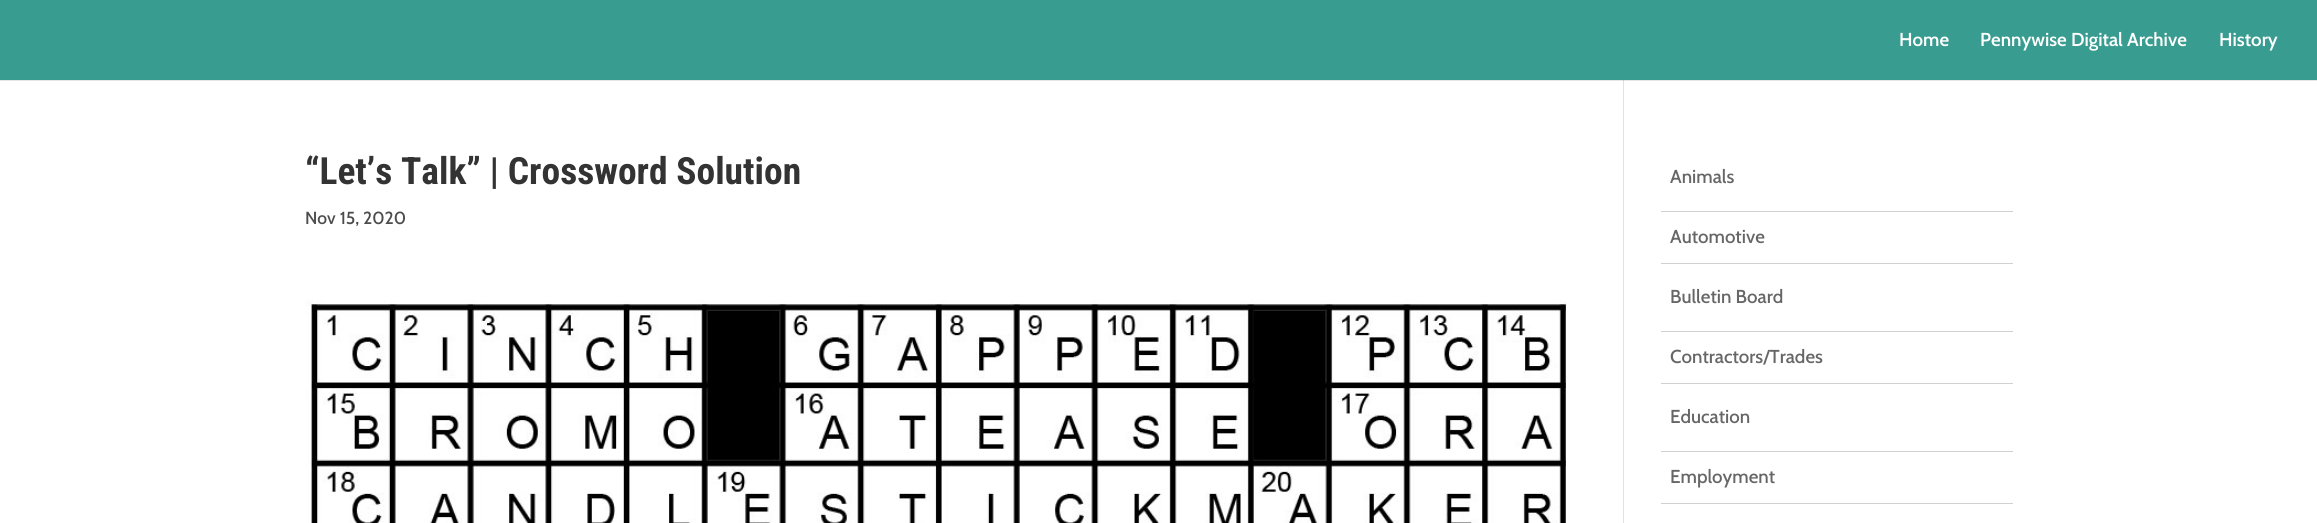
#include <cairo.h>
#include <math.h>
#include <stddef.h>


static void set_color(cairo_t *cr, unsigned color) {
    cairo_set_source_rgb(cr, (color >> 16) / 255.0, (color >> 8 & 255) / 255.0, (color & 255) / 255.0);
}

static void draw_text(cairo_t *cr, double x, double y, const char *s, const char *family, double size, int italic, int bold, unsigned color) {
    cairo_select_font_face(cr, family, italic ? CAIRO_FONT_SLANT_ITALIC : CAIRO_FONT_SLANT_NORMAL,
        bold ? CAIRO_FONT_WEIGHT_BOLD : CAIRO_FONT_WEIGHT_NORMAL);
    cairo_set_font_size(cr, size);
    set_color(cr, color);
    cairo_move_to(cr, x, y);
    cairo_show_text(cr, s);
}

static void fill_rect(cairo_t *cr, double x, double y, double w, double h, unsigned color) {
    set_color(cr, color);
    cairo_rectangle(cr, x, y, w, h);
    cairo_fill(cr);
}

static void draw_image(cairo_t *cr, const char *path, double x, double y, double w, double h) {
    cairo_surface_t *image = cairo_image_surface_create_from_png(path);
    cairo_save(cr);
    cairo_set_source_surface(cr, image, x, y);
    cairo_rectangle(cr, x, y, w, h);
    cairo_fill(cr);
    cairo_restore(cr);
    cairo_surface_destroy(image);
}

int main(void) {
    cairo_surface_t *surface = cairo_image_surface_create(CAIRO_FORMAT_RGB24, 2317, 523);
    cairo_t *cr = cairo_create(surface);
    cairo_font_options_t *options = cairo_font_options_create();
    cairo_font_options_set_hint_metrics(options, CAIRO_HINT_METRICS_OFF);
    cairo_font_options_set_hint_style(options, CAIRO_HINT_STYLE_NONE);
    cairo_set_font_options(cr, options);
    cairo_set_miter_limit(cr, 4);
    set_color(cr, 0xFFFFFF);
    cairo_paint(cr);
    fill_rect(cr, 1623, 80, 1, 443, 0xE2E2E2);
    cairo_set_source_rgba(cr, 0, 0, 0, 0.1);
    cairo_new_path(cr);
    cairo_move_to(cr, 0, 80);
    cairo_line_to(cr, 0, 81);
    cairo_line_to(cr, 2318, 81);
    cairo_line_to(cr, 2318, 1);
    cairo_line_to(cr, 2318, 80);
    cairo_close_path(cr);
    cairo_fill(cr);
    fill_rect(cr, 0, 0, 2317, 80, 0x389C90);
    draw_text(cr, 1899, 46, "Home", "Cabin SemiBold", 18.75, 0, 0, 0xFFFFFF);
    draw_text(cr, 1980, 46, "Pennywise Digital Archive", "Cabin SemiBold", 18.75, 0, 0, 0xFFFFFF);
    draw_text(cr, 2219, 46, "History", "Cabin SemiBold", 18.75, 0, 0, 0xFFFFFF);
    draw_text(cr, 305, 184, "“Let’s Talk” | Crossword Solution", "Roboto Condensed", 37.5, 0, 1, 0x333333);
    draw_text(cr, 305, 224, "Nov 15, 2020", "Cabin Medium", 17.5, 0, 0, 0x4C4C4C);
    draw_image(cr, "assets/img1.png", 305, 300, 1262, 223);
    draw_text(cr, 1670, 183, "Animals", "Cabin Medium", 18.75, 0, 0, 0x666666);
    fill_rect(cr, 1661, 211, 352, 1, 0xD1D1D1);
    fill_rect(cr, 1661, 263, 352, 1, 0xD1D1D1);
    draw_text(cr, 1670, 243, "Automotive", "Cabin Medium", 18.75, 0, 0, 0x666666);
    draw_text(cr, 1670, 303, "Bulletin Board", "Cabin Medium", 18.75, 0, 0, 0x666666);
    fill_rect(cr, 1661, 331, 352, 1, 0xD1D1D1);
    fill_rect(cr, 1661, 383, 352, 1, 0xD1D1D1);
    draw_text(cr, 1670, 363, "Contractors/Trades", "Cabin Medium", 18.75, 0, 0, 0x666666);
    draw_text(cr, 1670, 423, "Education", "Cabin Medium", 18.75, 0, 0, 0x666666);
    fill_rect(cr, 1661, 451, 352, 1, 0xD1D1D1);
    fill_rect(cr, 1661, 503, 352, 1, 0xD1D1D1);
    draw_text(cr, 1670, 483, "Employment", "Cabin Medium", 18.75, 0, 0, 0x666666);
    cairo_surface_write_to_png(surface, "output.png");
    cairo_font_options_destroy(options);
    cairo_destroy(cr);
    cairo_surface_destroy(surface);
    return 0;
}
